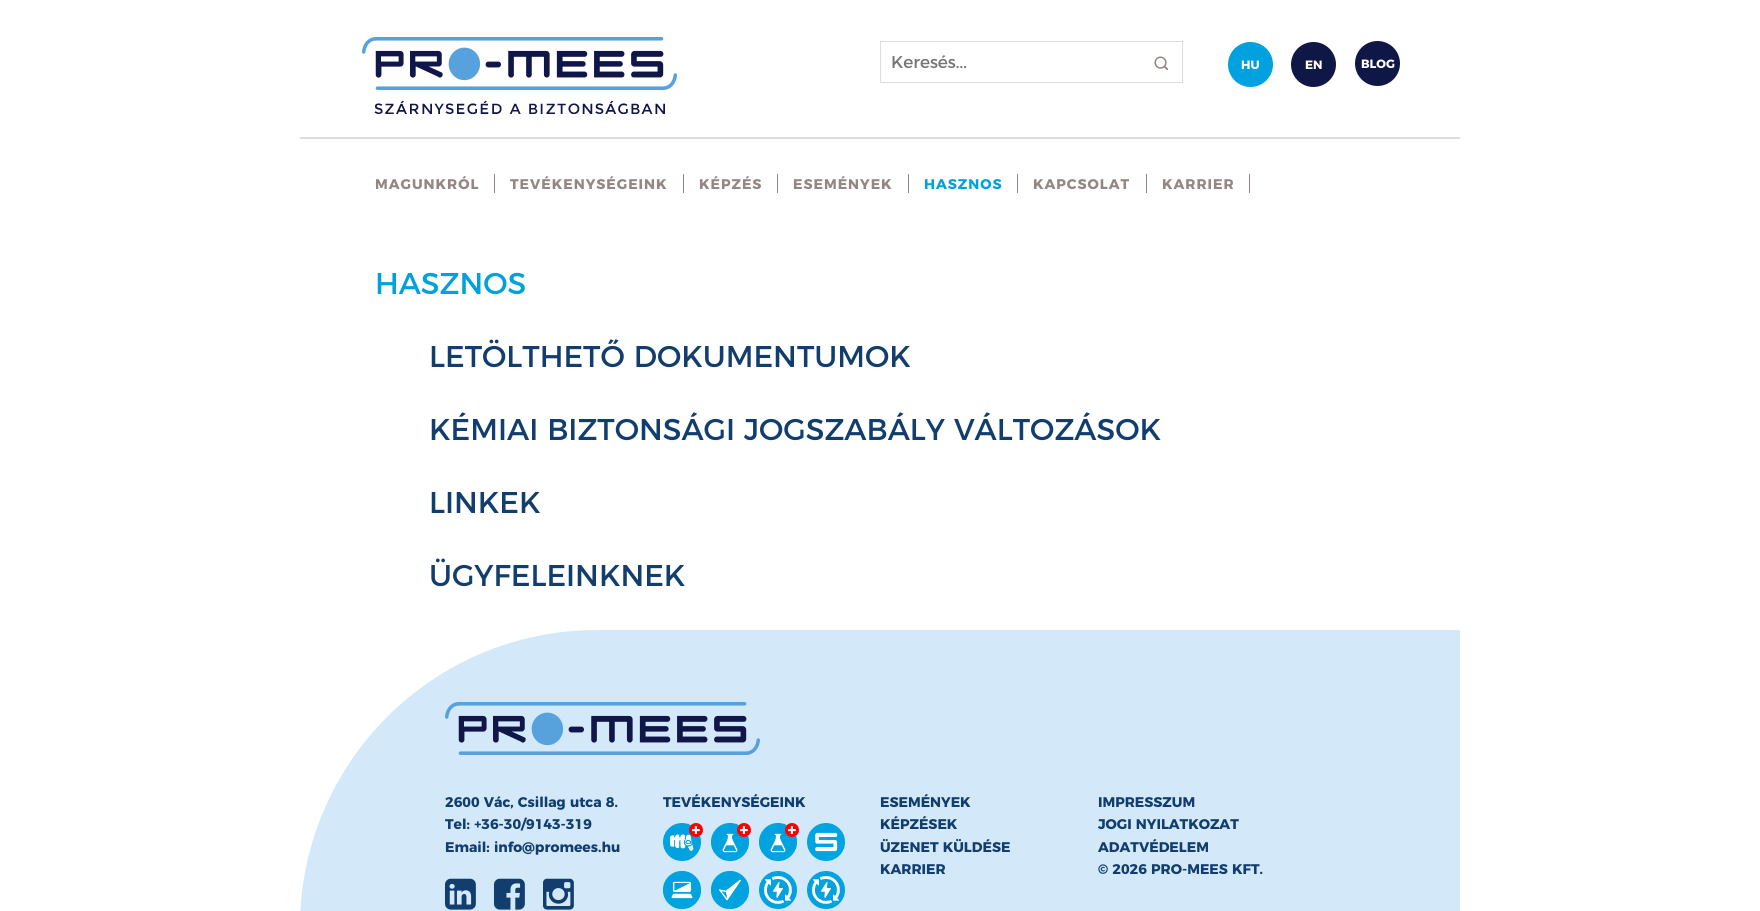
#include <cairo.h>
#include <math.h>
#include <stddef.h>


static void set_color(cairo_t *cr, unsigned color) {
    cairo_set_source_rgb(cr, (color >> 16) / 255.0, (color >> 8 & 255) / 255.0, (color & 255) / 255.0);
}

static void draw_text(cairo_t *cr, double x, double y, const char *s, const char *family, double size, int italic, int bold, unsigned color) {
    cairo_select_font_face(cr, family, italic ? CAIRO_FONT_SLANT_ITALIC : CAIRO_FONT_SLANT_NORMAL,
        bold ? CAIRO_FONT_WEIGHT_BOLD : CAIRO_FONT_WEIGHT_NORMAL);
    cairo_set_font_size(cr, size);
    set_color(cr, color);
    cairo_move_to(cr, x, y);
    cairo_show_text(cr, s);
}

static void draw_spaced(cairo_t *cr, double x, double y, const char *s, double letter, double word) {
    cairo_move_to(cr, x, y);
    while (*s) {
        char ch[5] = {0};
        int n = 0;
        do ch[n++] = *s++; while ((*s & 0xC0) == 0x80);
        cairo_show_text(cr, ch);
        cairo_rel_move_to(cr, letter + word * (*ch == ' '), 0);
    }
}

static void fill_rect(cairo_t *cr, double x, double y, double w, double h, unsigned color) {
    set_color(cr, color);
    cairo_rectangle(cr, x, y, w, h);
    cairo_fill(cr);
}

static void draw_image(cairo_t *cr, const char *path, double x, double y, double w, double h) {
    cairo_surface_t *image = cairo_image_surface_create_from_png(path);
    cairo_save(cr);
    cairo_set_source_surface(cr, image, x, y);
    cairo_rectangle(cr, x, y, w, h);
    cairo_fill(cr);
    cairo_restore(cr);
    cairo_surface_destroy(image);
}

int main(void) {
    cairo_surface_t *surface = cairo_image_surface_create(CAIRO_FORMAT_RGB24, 1760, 911);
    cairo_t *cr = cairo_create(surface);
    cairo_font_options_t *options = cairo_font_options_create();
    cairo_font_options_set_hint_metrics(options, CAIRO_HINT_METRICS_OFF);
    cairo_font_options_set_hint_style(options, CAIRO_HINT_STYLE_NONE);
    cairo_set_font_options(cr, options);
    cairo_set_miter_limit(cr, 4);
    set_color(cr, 0xFFFFFF);
    cairo_paint(cr);
    fill_rect(cr, 300, 137, 1160, 2, 0xDDDDDD);
    draw_image(cr, "assets/img1.png", 362, 37, 315, 77);
    cairo_rectangle(cr, 880.5, 41.5, 302, 41);
    cairo_set_line_width(cr, 1);
    cairo_stroke(cr);
    draw_text(cr, 891, 68, "Keresés...", "Montserrat", 17, 0, 0, 0x757575);
    draw_image(cr, "assets/img2.png", 1154, 56, 14, 14);
    set_color(cr, 0x00A1DF);
    cairo_arc(cr, 1250.5, 64.5, 22.5, 0, 2 * M_PI);
    cairo_fill(cr);
    draw_text(cr, 1241, 69, "HU", "Montserrat", 12, 0, 1, 0xFFFFFF);
    set_color(cr, 0x0F1747);
    cairo_new_path(cr);
    cairo_arc(cr, 1313.5, 64.5, 22.5, 0, 2 * M_PI);
    cairo_fill(cr);
    draw_text(cr, 1305, 69, "EN", "Montserrat", 12, 0, 1, 0xFFFFFF);
    set_color(cr, 0x0F1747);
    cairo_new_path(cr);
    cairo_arc(cr, 1377.5, 63.5, 22.5, 0, 2 * M_PI);
    cairo_fill(cr);
    draw_text(cr, 1361, 68, "BLOG", "Montserrat", 12, 0, 1, 0xFFFFFF);
    cairo_set_font_size(cr, 14);
    set_color(cr, 0x948783);
    draw_spaced(cr, 375, 189, "MAGUNKRÓL", 1, 0);
    fill_rect(cr, 494, 174, 1, 19, 0x948783);
    draw_spaced(cr, 510, 189, "TEVÉKENYSÉGEINK", 1, 0);
    fill_rect(cr, 683, 174, 1, 19, 0x948783);
    draw_spaced(cr, 699, 189, "KÉPZÉS", 1, 0);
    fill_rect(cr, 777, 174, 1, 19, 0x948783);
    draw_spaced(cr, 793, 189, "ESEMÉNYEK", 1, 0);
    fill_rect(cr, 908, 174, 1, 19, 0x948783);
    set_color(cr, 0x00A1DF);
    draw_spaced(cr, 924, 189, "HASZNOS", 1, 0);
    fill_rect(cr, 1017, 174, 1, 19, 0x948783);
    draw_spaced(cr, 1033, 189, "KAPCSOLAT", 1, 0);
    fill_rect(cr, 1146, 174, 1, 19, 0x948783);
    draw_spaced(cr, 1162, 189, "KARRIER", 1, 0);
    fill_rect(cr, 1249, 174, 1, 19, 0x948783);
    draw_text(cr, 375, 294, "HASZNOS", "Montserrat", 30, 0, 0, 0x00A1DF);
    draw_text(cr, 429, 367, "LETÖLTHETŐ DOKUMENTUMOK", "Montserrat", 30, 0, 0, 0x113D6F);
    draw_text(cr, 429, 440, "KÉMIAI BIZTONSÁGI JOGSZABÁLY VÁLTOZÁSOK", "Montserrat", 30, 0, 0, 0x113D6F);
    draw_text(cr, 429, 513, "LINKEK", "Montserrat", 30, 0, 0, 0x113D6F);
    draw_text(cr, 429, 586, "ÜGYFELEINKNEK", "Montserrat", 30, 0, 0, 0x113D6F);
    set_color(cr, 0xD3E9F9);
    cairo_new_path(cr);
    cairo_move_to(cr, 597, 630);
    cairo_line_to(cr, 1460, 630);
    cairo_line_to(cr, 1460, 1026);
    cairo_line_to(cr, 300, 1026);
    cairo_line_to(cr, 300, 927);
    cairo_curve_to(cr, 300, 763, 433, 630, 597, 630);
    cairo_close_path(cr);
    cairo_fill(cr);
    draw_image(cr, "assets/img3.png", 445, 702, 315, 53);
    draw_text(cr, 445, 807, "2600 Vác, Csillag utca 8.", "Montserrat", 14, 0, 1, 0x113D6F);
    draw_text(cr, 445, 829, "Tel: +36-30/9143-319", "Montserrat", 14, 0, 1, 0x113D6F);
    draw_text(cr, 445, 852, "Email: info@promees.hu", "Montserrat", 14, 0, 1, 0x113D6F);
    draw_image(cr, "assets/img4.png", 445, 878, 31, 32);
    draw_image(cr, "assets/img5.png", 494, 878, 31, 32);
    draw_image(cr, "assets/img6.png", 543, 878, 31, 32);
    draw_text(cr, 663, 807, "TEVÉKENYSÉGEINK", "Montserrat", 14, 0, 1, 0x113D6F);
    draw_image(cr, "assets/img7.png", 663, 823, 38, 38);
    set_color(cr, 0xFF0000);
    cairo_arc(cr, 696, 830, 7, 0, 2 * M_PI);
    cairo_fill(cr);
    draw_image(cr, "assets/img8.png", 692, 826, 8, 8);
    draw_image(cr, "assets/img9.png", 711, 823, 38, 38);
    cairo_arc(cr, 744, 830, 7, 0, 2 * M_PI);
    cairo_fill(cr);
    draw_image(cr, "assets/img8.png", 740, 826, 8, 8);
    draw_image(cr, "assets/img9.png", 759, 823, 38, 38);
    cairo_arc(cr, 792, 830, 7, 0, 2 * M_PI);
    cairo_fill(cr);
    draw_image(cr, "assets/img8.png", 788, 826, 8, 8);
    draw_image(cr, "assets/img10.png", 807, 823, 38, 38);
    draw_image(cr, "assets/img11.png", 663, 871, 38, 38);
    draw_image(cr, "assets/img12.png", 711, 871, 38, 38);
    draw_image(cr, "assets/img13.png", 759, 871, 38, 38);
    draw_image(cr, "assets/img13.png", 807, 871, 38, 38);
    draw_text(cr, 880, 807, "ESEMÉNYEK", "Montserrat", 14, 0, 1, 0x113D6F);
    draw_text(cr, 880, 829, "KÉPZÉSEK", "Montserrat", 14, 0, 1, 0x113D6F);
    draw_text(cr, 880, 852, "ÜZENET KÜLDÉSE", "Montserrat", 14, 0, 1, 0x113D6F);
    draw_text(cr, 880, 874, "KARRIER", "Montserrat", 14, 0, 1, 0x113D6F);
    draw_text(cr, 1098, 807, "IMPRESSZUM", "Montserrat", 14, 0, 1, 0x113D6F);
    draw_text(cr, 1098, 829, "JOGI NYILATKOZAT", "Montserrat", 14, 0, 1, 0x113D6F);
    draw_text(cr, 1098, 852, "ADATVÉDELEM", "Montserrat", 14, 0, 1, 0x113D6F);
    draw_text(cr, 1098, 874, "© 2026 PRO-MEES KFT.", "Montserrat", 14, 0, 1, 0x113D6F);
    cairo_surface_write_to_png(surface, "output.png");
    cairo_font_options_destroy(options);
    cairo_destroy(cr);
    cairo_surface_destroy(surface);
    return 0;
}
